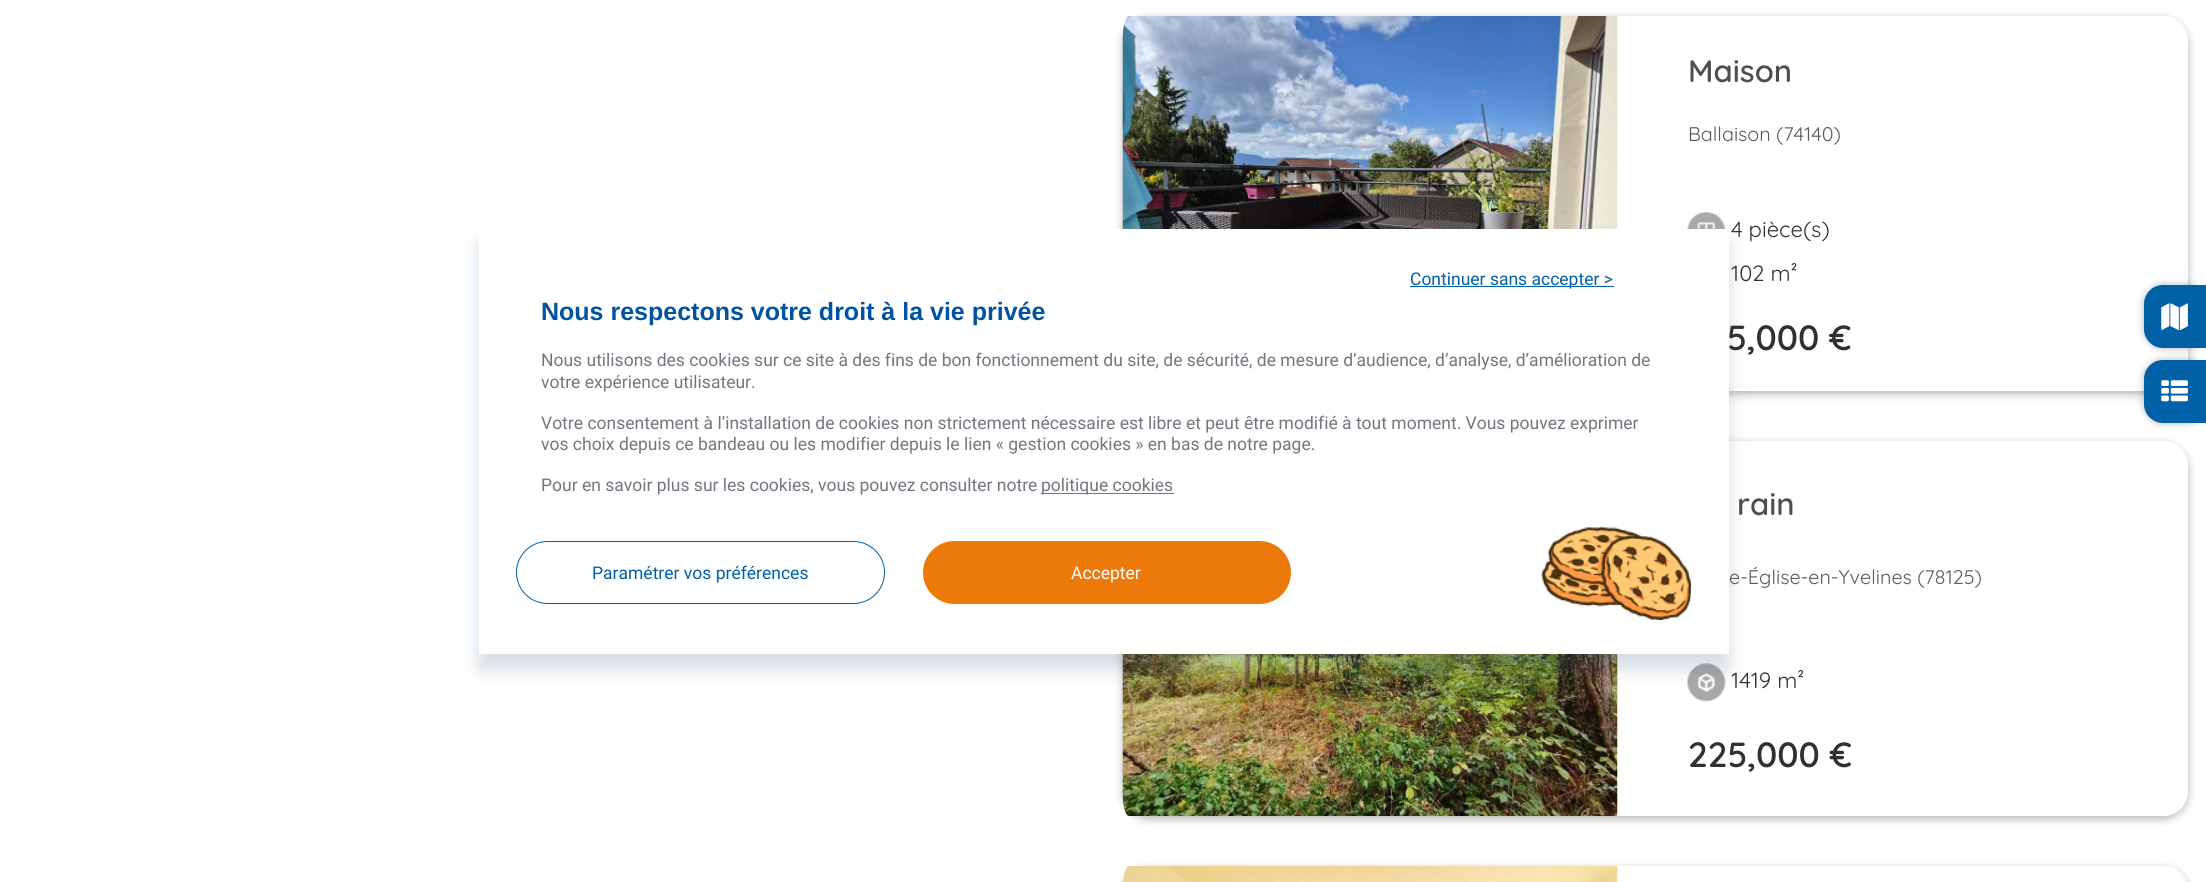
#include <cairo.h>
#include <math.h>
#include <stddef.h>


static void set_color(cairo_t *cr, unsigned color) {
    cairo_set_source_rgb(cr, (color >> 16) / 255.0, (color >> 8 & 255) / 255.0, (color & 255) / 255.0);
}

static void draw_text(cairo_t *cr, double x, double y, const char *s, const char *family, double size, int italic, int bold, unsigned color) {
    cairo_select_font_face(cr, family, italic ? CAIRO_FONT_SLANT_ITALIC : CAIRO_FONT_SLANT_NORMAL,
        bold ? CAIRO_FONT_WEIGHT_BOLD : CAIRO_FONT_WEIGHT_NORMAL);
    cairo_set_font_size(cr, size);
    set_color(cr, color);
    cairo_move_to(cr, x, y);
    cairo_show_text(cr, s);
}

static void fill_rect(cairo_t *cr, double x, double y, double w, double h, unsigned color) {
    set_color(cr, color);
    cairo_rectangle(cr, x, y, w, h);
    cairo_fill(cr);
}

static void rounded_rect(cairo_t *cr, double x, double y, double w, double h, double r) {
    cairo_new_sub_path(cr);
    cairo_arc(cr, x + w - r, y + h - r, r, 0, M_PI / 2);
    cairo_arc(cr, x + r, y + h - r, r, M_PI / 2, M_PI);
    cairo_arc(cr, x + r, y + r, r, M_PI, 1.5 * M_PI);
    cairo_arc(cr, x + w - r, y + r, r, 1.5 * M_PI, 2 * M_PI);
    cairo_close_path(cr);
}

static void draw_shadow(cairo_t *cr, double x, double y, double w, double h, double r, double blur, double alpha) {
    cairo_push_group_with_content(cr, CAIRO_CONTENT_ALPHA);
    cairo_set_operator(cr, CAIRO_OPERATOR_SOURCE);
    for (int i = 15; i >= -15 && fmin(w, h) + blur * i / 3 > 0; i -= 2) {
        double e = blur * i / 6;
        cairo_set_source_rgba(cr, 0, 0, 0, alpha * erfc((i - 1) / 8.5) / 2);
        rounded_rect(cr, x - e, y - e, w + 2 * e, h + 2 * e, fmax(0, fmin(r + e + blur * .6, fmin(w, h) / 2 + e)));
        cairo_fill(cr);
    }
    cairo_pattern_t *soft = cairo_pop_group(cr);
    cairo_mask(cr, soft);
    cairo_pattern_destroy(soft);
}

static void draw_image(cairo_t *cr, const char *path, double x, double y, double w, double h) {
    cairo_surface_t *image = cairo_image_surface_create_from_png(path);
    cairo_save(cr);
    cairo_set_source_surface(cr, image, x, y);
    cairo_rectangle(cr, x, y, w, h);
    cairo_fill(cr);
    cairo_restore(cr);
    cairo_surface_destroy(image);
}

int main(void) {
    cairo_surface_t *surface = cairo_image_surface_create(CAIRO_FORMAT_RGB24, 2206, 882);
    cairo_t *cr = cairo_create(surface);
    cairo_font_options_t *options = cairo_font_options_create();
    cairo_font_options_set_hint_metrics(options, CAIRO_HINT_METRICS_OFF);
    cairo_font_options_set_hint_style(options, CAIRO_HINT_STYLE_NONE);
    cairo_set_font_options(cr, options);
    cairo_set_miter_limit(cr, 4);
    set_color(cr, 0xFFFFFF);
    cairo_paint(cr);
    cairo_save(cr);
    cairo_set_fill_rule(cr, CAIRO_FILL_RULE_EVEN_ODD);
    cairo_new_path(cr);
    cairo_move_to(cr, 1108, 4);
    cairo_line_to(cr, 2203, 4);
    cairo_line_to(cr, 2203, 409);
    cairo_line_to(cr, 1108, 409);
    cairo_close_path(cr);
    cairo_move_to(cr, 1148, 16);
    cairo_line_to(cr, 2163, 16);
    cairo_curve_to(cr, 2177, 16, 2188, 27, 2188, 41);
    cairo_line_to(cr, 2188, 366);
    cairo_curve_to(cr, 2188, 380, 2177, 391, 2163, 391);
    cairo_line_to(cr, 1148, 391);
    cairo_curve_to(cr, 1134, 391, 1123, 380, 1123, 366);
    cairo_line_to(cr, 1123, 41);
    cairo_curve_to(cr, 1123, 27, 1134, 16, 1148, 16);
    cairo_close_path(cr);
    cairo_clip(cr);
    set_color(cr, 0x000000);
    draw_shadow(cr, 1123, 19, 1065, 375, 25, 4.5, 0.3);
    cairo_restore(cr);
    draw_image(cr, "assets/img2.png", 1122, 16, 496, 213);
    draw_image(cr, "assets/img3.png", 1687, 212, 39, 17);
    cairo_save(cr);
    cairo_set_fill_rule(cr, CAIRO_FILL_RULE_EVEN_ODD);
    cairo_new_path(cr);
    cairo_move_to(cr, 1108, 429);
    cairo_line_to(cr, 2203, 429);
    cairo_line_to(cr, 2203, 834);
    cairo_line_to(cr, 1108, 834);
    cairo_close_path(cr);
    cairo_move_to(cr, 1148, 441);
    cairo_line_to(cr, 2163, 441);
    cairo_curve_to(cr, 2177, 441, 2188, 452, 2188, 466);
    cairo_line_to(cr, 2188, 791);
    cairo_curve_to(cr, 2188, 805, 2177, 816, 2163, 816);
    cairo_line_to(cr, 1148, 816);
    cairo_curve_to(cr, 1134, 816, 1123, 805, 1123, 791);
    cairo_line_to(cr, 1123, 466);
    cairo_curve_to(cr, 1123, 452, 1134, 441, 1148, 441);
    cairo_close_path(cr);
    cairo_clip(cr);
    set_color(cr, 0x000000);
    draw_shadow(cr, 1123, 444, 1065, 375, 25, 4.5, 0.3);
    cairo_restore(cr);
    draw_image(cr, "assets/img4.png", 1122, 654, 496, 162);
    draw_image(cr, "assets/img5.png", 1687, 663, 39, 39);
    set_color(cr, 0x214B73);
    draw_shadow(cr, 479, 244, 1250, 425, 0, 9.5, 0.2);
    draw_text(cr, 1727, 350, "5,000 €", "Quicksand SemiBold", 35, 0, 0, 0x303030);
    fill_rect(cr, 479, 229, 1250, 425, 0xFFFFFF);
    fill_rect(cr, 1410, 286, 204, 1, 0x0061A7);
    draw_text(cr, 1410, 285, "Continuer sans accepter >", "Roboto", 17.5, 0, 0, 0x0061A7);
    draw_text(cr, 541, 320, "Nous respectons votre droit à la vie privée", "Liberation Sans", 25, 0, 1, 0x0053A1);
    draw_text(cr, 541, 366, "Nous utilisons des cookies sur ce site à des fins de bon fonctionnement du site, de sécurité, de mesure d’audience, d’analyse, d’amélioration de", "Roboto", 17.5, 0, 0, 0x757580);
    draw_text(cr, 541, 388, "votre expérience utilisateur.", "Roboto", 17.5, 0, 0, 0x757580);
    draw_text(cr, 541, 429, "Votre consentement à l’installation de cookies non strictement nécessaire est libre et peut être modifié à tout moment. Vous pouvez exprimer", "Roboto", 17.5, 0, 0, 0x757580);
    draw_text(cr, 541, 450, "vos choix depuis ce bandeau ou les modifier depuis le lien « gestion cookies » en bas de notre page.", "Roboto", 17.5, 0, 0, 0x757580);
    draw_text(cr, 541, 491, "Pour en savoir plus sur les cookies, vous pouvez consulter notre", "Roboto", 17.5, 0, 0, 0x757580);
    fill_rect(cr, 1041, 493, 133, 1, 0x757580);
    draw_text(cr, 1041, 491, "politique cookies", "Roboto", 17.5, 0, 0, 0x757580);
    rounded_rect(cr, 516.5, 541.5, 368, 62, 31);
    set_color(cr, 0x0061A7);
    cairo_set_line_width(cr, 1);
    cairo_stroke(cr);
    draw_text(cr, 592, 579, "Paramétrer vos préférences", "Roboto", 17.5, 0, 0, 0x0061A7);
    set_color(cr, 0xEC7A0A);
    rounded_rect(cr, 923, 541, 368, 63, 31.5);
    cairo_fill(cr);
    draw_text(cr, 1071, 579, "Accepter", "Roboto", 17.5, 0, 0, 0xFFFFFF);
    draw_image(cr, "assets/img1.png", 1541, 526, 150, 94);
    draw_text(cr, 1688, 82, "Maison", "Quicksand SemiBold", 31, 0, 0, 0x4E4E4E);
    draw_text(cr, 1688, 141, "Ballaison (74140)", "Quicksand", 19.75, 0, 0, 0x5A5A5A);
    draw_text(cr, 1731, 237, "4 pièce(s)", "Quicksand", 22, 0, 0, 0x303030);
    draw_text(cr, 1731, 281, "102 m²", "Quicksand", 22, 0, 0, 0x303030);
    draw_text(cr, 1737, 515, "rain", "Quicksand SemiBold", 31, 0, 0, 0x4E4E4E);
    draw_text(cr, 1729, 584, "e-Église-en-Yvelines (78125)", "Quicksand", 19.75, 0, 0, 0x5A5A5A);
    draw_text(cr, 1731, 688, "1419 m²", "Quicksand", 22, 0, 0, 0x303030);
    draw_text(cr, 1688, 767, "225,000 €", "Quicksand SemiBold", 35, 0, 0, 0x303030);
    cairo_save(cr);
    cairo_set_fill_rule(cr, CAIRO_FILL_RULE_EVEN_ODD);
    cairo_new_path(cr);
    cairo_move_to(cr, 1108, 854);
    cairo_line_to(cr, 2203, 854);
    cairo_line_to(cr, 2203, 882);
    cairo_line_to(cr, 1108, 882);
    cairo_close_path(cr);
    cairo_move_to(cr, 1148, 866);
    cairo_line_to(cr, 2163, 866);
    cairo_curve_to(cr, 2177, 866, 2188, 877, 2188, 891);
    cairo_line_to(cr, 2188, 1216);
    cairo_curve_to(cr, 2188, 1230, 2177, 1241, 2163, 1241);
    cairo_line_to(cr, 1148, 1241);
    cairo_curve_to(cr, 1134, 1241, 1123, 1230, 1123, 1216);
    cairo_line_to(cr, 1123, 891);
    cairo_curve_to(cr, 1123, 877, 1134, 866, 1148, 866);
    cairo_close_path(cr);
    cairo_clip(cr);
    set_color(cr, 0x000000);
    draw_shadow(cr, 1123, 869, 1065, 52, 25, 4.5, 0.3);
    cairo_restore(cr);
    draw_image(cr, "assets/img6.png", 1123, 866, 495, 16);
    set_color(cr, 0x000000);
    draw_shadow(cr, 2144, 285, 62, 63, 19, 4, 0.3);
    set_color(cr, 0x0061A7);
    cairo_new_path(cr);
    cairo_move_to(cr, 2163, 285);
    cairo_line_to(cr, 2206, 285);
    cairo_line_to(cr, 2206, 348);
    cairo_line_to(cr, 2163, 348);
    cairo_curve_to(cr, 2152.5, 348, 2144, 339.5, 2144, 329);
    cairo_line_to(cr, 2144, 304);
    cairo_curve_to(cr, 2144, 293.5, 2152.5, 285, 2163, 285);
    cairo_close_path(cr);
    cairo_fill(cr);
    draw_image(cr, "assets/img7.png", 2161, 303, 27, 27);
    set_color(cr, 0x000000);
    draw_shadow(cr, 2144, 360, 62, 63, 19, 4, 0.3);
    set_color(cr, 0x0061A7);
    cairo_new_path(cr);
    cairo_move_to(cr, 2163, 360);
    cairo_line_to(cr, 2206, 360);
    cairo_line_to(cr, 2206, 423);
    cairo_line_to(cr, 2163, 423);
    cairo_curve_to(cr, 2152.5, 423, 2144, 414.5, 2144, 404);
    cairo_line_to(cr, 2144, 379);
    cairo_curve_to(cr, 2144, 368.5, 2152.5, 360, 2163, 360);
    cairo_close_path(cr);
    cairo_fill(cr);
    draw_image(cr, "assets/img8.png", 2161, 380, 27, 22);
    cairo_surface_write_to_png(surface, "output.png");
    cairo_font_options_destroy(options);
    cairo_destroy(cr);
    cairo_surface_destroy(surface);
    return 0;
}
